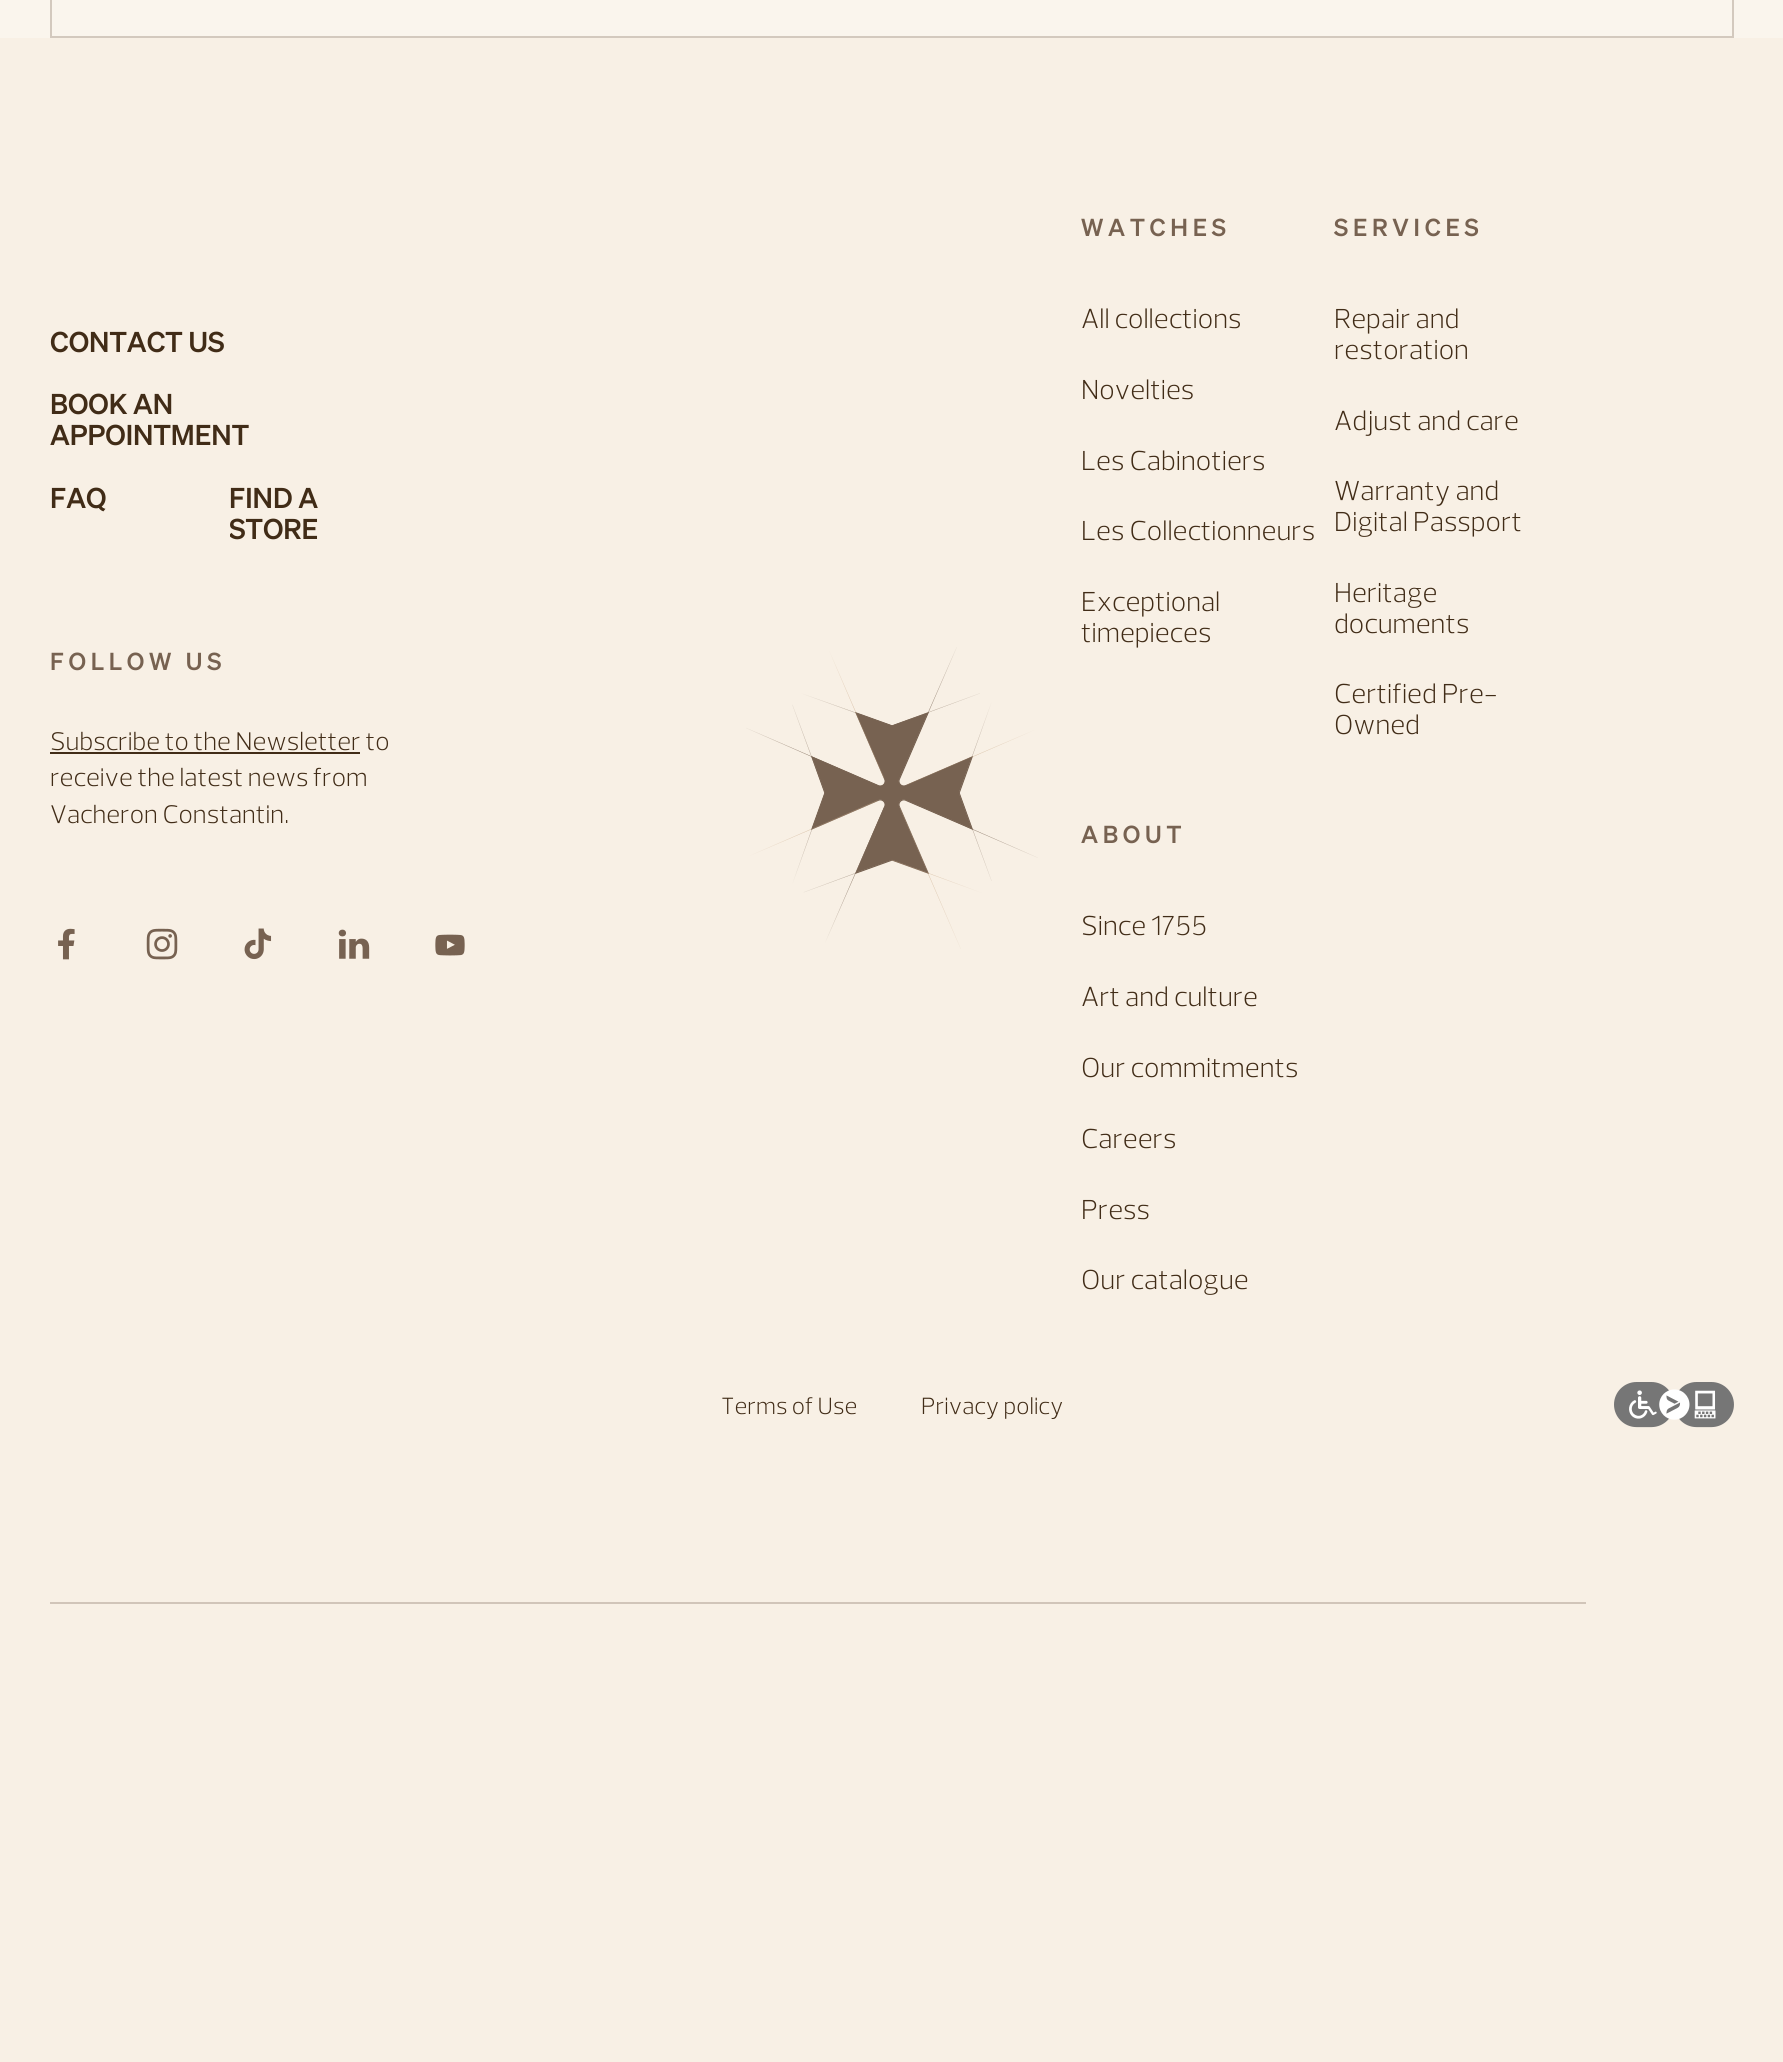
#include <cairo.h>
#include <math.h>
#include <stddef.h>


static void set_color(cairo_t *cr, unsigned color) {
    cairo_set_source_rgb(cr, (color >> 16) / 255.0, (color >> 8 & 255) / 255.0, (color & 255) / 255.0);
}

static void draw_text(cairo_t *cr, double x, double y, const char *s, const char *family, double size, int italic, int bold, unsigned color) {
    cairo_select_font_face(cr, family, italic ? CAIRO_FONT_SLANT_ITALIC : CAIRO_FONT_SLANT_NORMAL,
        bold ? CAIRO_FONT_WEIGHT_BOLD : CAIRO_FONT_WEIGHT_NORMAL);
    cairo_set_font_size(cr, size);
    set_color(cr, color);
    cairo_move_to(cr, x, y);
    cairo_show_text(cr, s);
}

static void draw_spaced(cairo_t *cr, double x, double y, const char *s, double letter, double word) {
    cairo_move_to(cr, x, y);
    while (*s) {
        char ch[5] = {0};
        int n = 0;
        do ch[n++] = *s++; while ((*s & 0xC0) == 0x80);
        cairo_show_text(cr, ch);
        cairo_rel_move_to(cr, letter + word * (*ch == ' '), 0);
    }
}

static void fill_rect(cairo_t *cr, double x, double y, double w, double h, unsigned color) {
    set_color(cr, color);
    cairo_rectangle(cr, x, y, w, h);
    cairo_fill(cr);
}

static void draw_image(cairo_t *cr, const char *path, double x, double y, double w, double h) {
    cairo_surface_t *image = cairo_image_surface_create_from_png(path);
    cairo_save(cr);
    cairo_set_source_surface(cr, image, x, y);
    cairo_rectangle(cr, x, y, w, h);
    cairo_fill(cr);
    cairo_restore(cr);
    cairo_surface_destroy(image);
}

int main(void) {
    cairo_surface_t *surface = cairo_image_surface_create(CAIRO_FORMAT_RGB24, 1783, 2062);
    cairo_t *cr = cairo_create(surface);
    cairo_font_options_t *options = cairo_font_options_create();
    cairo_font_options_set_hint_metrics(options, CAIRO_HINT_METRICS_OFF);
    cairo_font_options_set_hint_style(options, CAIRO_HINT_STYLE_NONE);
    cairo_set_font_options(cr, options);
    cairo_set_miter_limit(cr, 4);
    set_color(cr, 0xF8F0E5);
    cairo_paint(cr);
    fill_rect(cr, 0, 0, 1783, 38, 0xFAF5ED);
    cairo_rectangle(cr, 51, -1, 1682, 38);
    set_color(cr, 0xD3C9BE);
    cairo_stroke(cr);
    draw_image(cr, "assets/img1.png", 746, 647, 292, 302);
    draw_text(cr, 50, 352, "CONTACT US", "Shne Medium", 28, 0, 0, 0x412C17);
    draw_text(cr, 50, 414, "BOOK AN", "Shne Medium", 28, 0, 0, 0x412C17);
    draw_text(cr, 50, 445, "APPOINTMENT", "Shne Medium", 28, 0, 0, 0x412C17);
    draw_text(cr, 50, 508, "FAQ", "Shne Medium", 28, 0, 0, 0x412C17);
    draw_text(cr, 229, 508, "FIND A", "Shne Medium", 28, 0, 0, 0x412C17);
    cairo_save(cr);
    cairo_rectangle(cr, 230, 466, 178, 94);
    cairo_clip(cr);
    draw_text(cr, 229, 539, "STORE", "Shne Medium", 28, 0, 0, 0x412C17);
    cairo_restore(cr);
    cairo_set_font_size(cr, 24);
    set_color(cr, 0x776251);
    draw_spaced(cr, 50, 670, "FOLLOW US", 4.75, 0);
    draw_text(cr, 50, 750, "Subscribe to the Newsletter to", "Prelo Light", 26, 0, 0, 0x412C17);
    fill_rect(cr, 50, 752, 310, 2, 0x412C17);
    draw_text(cr, 50, 786, "receive the latest news from", "Prelo Light", 26, 0, 0, 0x412C17);
    draw_text(cr, 50, 823, "Vacheron Constantin.", "Prelo Light", 26, 0, 0, 0x412C17);
    draw_image(cr, "assets/img2.png", 58, 928, 17, 32);
    draw_image(cr, "assets/img3.png", 146, 928, 32, 32);
    draw_image(cr, "assets/img4.png", 244, 928, 28, 32);
    draw_image(cr, "assets/img5.png", 338, 929, 32, 30);
    draw_image(cr, "assets/img6.png", 435, 934, 30, 22);
    cairo_select_font_face(cr, "Shne Medium", CAIRO_FONT_SLANT_NORMAL, CAIRO_FONT_WEIGHT_NORMAL);
    cairo_set_font_size(cr, 24);
    set_color(cr, 0x776251);
    draw_spaced(cr, 1081, 236, "WATCHES", 4.75, 0);
    draw_text(cr, 1081, 328, "All collections", "Prelo Light", 28, 0, 0, 0x412C17);
    draw_text(cr, 1081, 399, "Novelties", "Prelo Light", 28, 0, 0, 0x412C17);
    draw_text(cr, 1081, 470, "Les Cabinotiers", "Prelo Light", 28, 0, 0, 0x412C17);
    draw_text(cr, 1081, 540, "Les Collectionneurs", "Prelo Light", 28, 0, 0, 0x412C17);
    draw_text(cr, 1081, 611, "Exceptional", "Prelo Light", 28, 0, 0, 0x412C17);
    draw_text(cr, 1081, 642, "timepieces", "Prelo Light", 28, 0, 0, 0x412C17);
    cairo_select_font_face(cr, "Shne Medium", CAIRO_FONT_SLANT_NORMAL, CAIRO_FONT_WEIGHT_NORMAL);
    cairo_set_font_size(cr, 24);
    set_color(cr, 0x776251);
    draw_spaced(cr, 1334, 236, "SERVICES", 4.75, 0);
    draw_text(cr, 1334, 328, "Repair and", "Prelo Light", 28, 0, 0, 0x412C17);
    draw_text(cr, 1334, 359, "restoration", "Prelo Light", 28, 0, 0, 0x412C17);
    draw_text(cr, 1334, 430, "Adjust and care", "Prelo Light", 28, 0, 0, 0x412C17);
    draw_text(cr, 1334, 500, "Warranty and", "Prelo Light", 28, 0, 0, 0x412C17);
    draw_text(cr, 1334, 531, "Digital Passport", "Prelo Light", 28, 0, 0, 0x412C17);
    draw_text(cr, 1334, 602, "Heritage", "Prelo Light", 28, 0, 0, 0x412C17);
    draw_text(cr, 1334, 633, "documents", "Prelo Light", 28, 0, 0, 0x412C17);
    draw_text(cr, 1334, 703, "Certified Pre-", "Prelo Light", 28, 0, 0, 0x412C17);
    draw_text(cr, 1334, 734, "Owned", "Prelo Light", 28, 0, 0, 0x412C17);
    cairo_select_font_face(cr, "Shne Medium", CAIRO_FONT_SLANT_NORMAL, CAIRO_FONT_WEIGHT_NORMAL);
    cairo_set_font_size(cr, 24);
    set_color(cr, 0x776251);
    draw_spaced(cr, 1081, 843, "ABOUT", 4.75, 0);
    draw_text(cr, 1081, 935, "Since 1755", "Prelo Light", 28, 0, 0, 0x412C17);
    draw_text(cr, 1081, 1006, "Art and culture", "Prelo Light", 28, 0, 0, 0x412C17);
    draw_text(cr, 1081, 1077, "Our commitments", "Prelo Light", 28, 0, 0, 0x412C17);
    draw_text(cr, 1081, 1148, "Careers", "Prelo Light", 28, 0, 0, 0x412C17);
    draw_text(cr, 1081, 1219, "Press", "Prelo Light", 28, 0, 0, 0x412C17);
    draw_text(cr, 1081, 1289, "Our catalogue", "Prelo Light", 28, 0, 0, 0x412C17);
    draw_text(cr, 721, 1414, "Terms of Use", "Prelo Light", 24, 0, 0, 0x412C17);
    draw_text(cr, 921, 1414, "Privacy policy", "Prelo Light", 24, 0, 0, 0x412C17);
    draw_image(cr, "assets/img7.png", 1614, 1382, 120, 46);
    fill_rect(cr, 50, 1602, 1536, 2, 0xD1C5B9);
    cairo_surface_write_to_png(surface, "output.png");
    cairo_font_options_destroy(options);
    cairo_destroy(cr);
    cairo_surface_destroy(surface);
    return 0;
}
